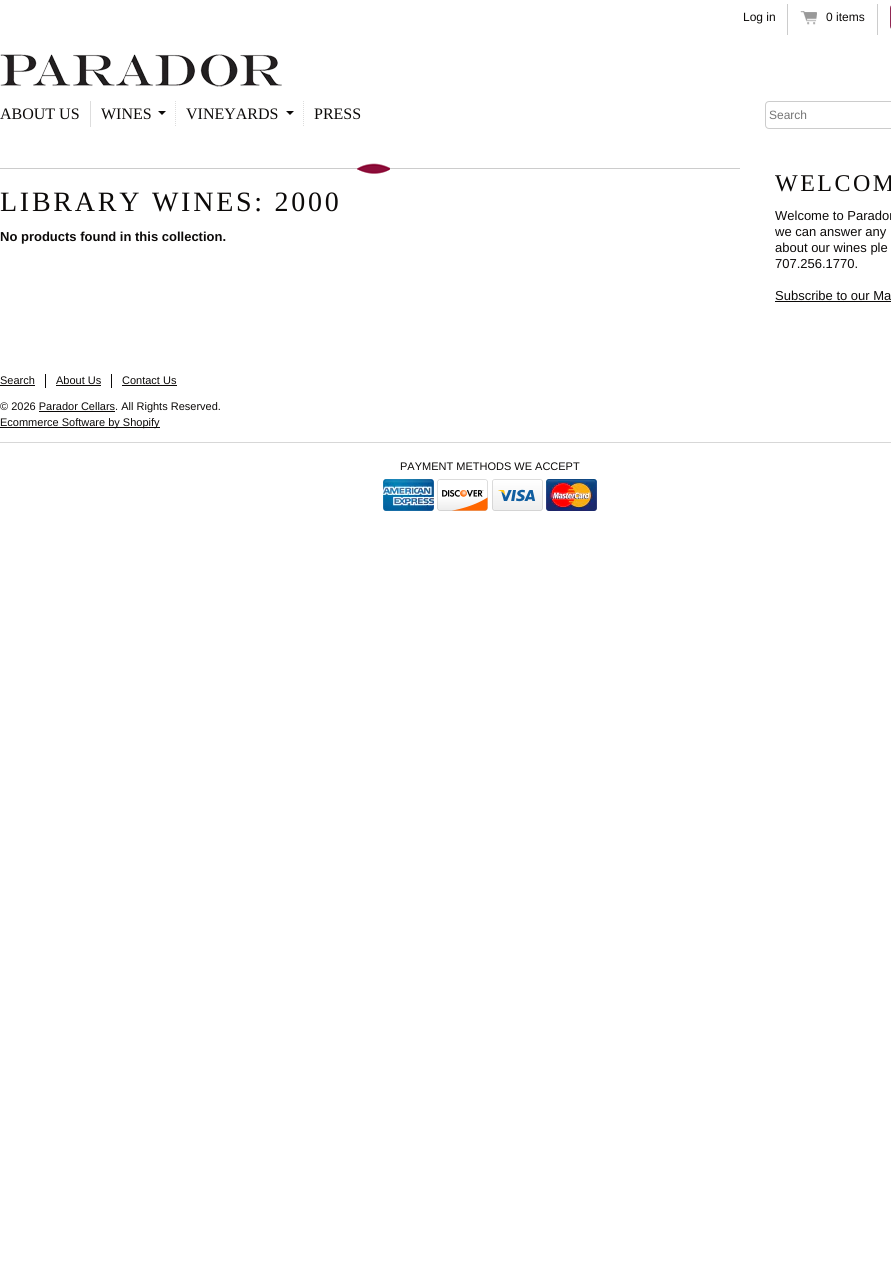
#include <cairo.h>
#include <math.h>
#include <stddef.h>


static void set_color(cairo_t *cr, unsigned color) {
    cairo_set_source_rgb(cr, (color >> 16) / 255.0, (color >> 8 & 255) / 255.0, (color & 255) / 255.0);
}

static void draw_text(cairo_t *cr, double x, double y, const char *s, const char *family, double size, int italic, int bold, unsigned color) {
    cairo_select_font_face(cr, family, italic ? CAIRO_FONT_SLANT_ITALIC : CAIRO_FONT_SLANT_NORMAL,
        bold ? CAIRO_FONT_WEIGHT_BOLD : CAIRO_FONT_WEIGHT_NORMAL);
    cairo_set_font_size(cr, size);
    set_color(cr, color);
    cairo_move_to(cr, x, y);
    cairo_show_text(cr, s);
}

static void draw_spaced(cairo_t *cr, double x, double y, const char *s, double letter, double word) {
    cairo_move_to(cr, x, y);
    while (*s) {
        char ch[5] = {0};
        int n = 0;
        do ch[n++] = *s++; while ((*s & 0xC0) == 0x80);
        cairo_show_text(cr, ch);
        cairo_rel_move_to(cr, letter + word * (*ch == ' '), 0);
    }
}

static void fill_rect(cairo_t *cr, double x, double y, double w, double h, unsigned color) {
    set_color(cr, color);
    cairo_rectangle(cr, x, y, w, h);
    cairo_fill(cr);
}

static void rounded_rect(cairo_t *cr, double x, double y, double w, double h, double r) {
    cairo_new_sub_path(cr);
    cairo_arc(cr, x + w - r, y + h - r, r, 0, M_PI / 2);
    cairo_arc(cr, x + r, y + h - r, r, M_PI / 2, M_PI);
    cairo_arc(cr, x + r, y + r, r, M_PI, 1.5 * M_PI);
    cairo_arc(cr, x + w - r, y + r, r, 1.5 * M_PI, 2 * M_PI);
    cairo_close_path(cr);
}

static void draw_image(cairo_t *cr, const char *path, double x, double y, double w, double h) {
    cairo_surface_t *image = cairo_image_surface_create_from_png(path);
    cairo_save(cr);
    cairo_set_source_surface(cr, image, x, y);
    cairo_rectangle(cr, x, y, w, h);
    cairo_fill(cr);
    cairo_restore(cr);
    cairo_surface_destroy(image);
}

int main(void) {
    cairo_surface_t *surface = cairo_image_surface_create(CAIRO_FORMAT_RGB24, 891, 1267);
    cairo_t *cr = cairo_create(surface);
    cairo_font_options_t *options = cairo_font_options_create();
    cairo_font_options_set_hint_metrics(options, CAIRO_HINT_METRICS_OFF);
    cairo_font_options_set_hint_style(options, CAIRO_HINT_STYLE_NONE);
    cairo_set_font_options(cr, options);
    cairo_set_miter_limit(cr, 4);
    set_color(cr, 0xFFFFFF);
    cairo_paint(cr);
    fill_rect(cr, 787, 4, 1, 31, 0xCCCCCC);
    draw_text(cr, 743, 21, "Log in", "Liberation Sans", 12, 0, 0, 0x0C0A09);
    fill_rect(cr, 877, 4, 1, 31, 0xCCCCCC);
    draw_image(cr, "assets/img1.png", 800, 11, 17, 14);
    draw_text(cr, 826, 21, "0 items", "Liberation Sans", 12, 0, 0, 0x0C0A09);
    draw_image(cr, "assets/img2.png", 890, 26, 1, 3);
    rounded_rect(cr, 890.5, 4.5, 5, 25, 3.5);
    set_color(cr, 0x912753);
    cairo_set_line_width(cr, 1);
    cairo_stroke(cr);
    draw_image(cr, "assets/img3.png", 0, 54, 282, 33);
    fill_rect(cr, 90, 101, 1, 26, 0xDDDDDD);
    draw_text(cr, 0, 119, "ABOUT US", "Liberation Serif", 16, 0, 0, 0x0C0A09);
    cairo_new_path(cr);
    cairo_move_to(cr, 175.5, 101);
    cairo_line_to(cr, 175.5, 127);
    set_color(cr, 0xDDDDDD);
    cairo_set_dash(cr, (double[]){1, 1}, 2, 0);
    cairo_stroke(cr);
    draw_text(cr, 101, 119, "WINES", "Liberation Serif", 16, 0, 0, 0x0C0A09);
    cairo_new_path(cr);
    cairo_move_to(cr, 158, 111);
    cairo_line_to(cr, 166, 111);
    cairo_line_to(cr, 162, 115);
    cairo_close_path(cr);
    cairo_fill(cr);
    cairo_new_path(cr);
    cairo_move_to(cr, 303.5, 101);
    cairo_line_to(cr, 303.5, 127);
    set_color(cr, 0xDDDDDD);
    cairo_stroke(cr);
    draw_text(cr, 186, 119, "VINEYARDS", "Liberation Serif", 16, 0, 0, 0x0C0A09);
    cairo_new_path(cr);
    cairo_move_to(cr, 286, 111);
    cairo_line_to(cr, 294, 111);
    cairo_line_to(cr, 290, 115);
    cairo_close_path(cr);
    cairo_fill(cr);
    draw_text(cr, 314, 119, "PRESS", "Liberation Serif", 16, 0, 0, 0x0C0A09);
    rounded_rect(cr, 765.5, 101.5, 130, 27, 3.5);
    set_color(cr, 0xCCCCCC);
    cairo_set_dash(cr, NULL, 0, 0);
    cairo_stroke(cr);
    draw_text(cr, 769, 119, "Search", "Liberation Sans", 12, 0, 0, 0x757575);
    draw_image(cr, "assets/img4.png", 0, 163, 740, 11);
    cairo_select_font_face(cr, "Liberation Serif", CAIRO_FONT_SLANT_NORMAL, CAIRO_FONT_WEIGHT_NORMAL);
    cairo_set_font_size(cr, 28);
    set_color(cr, 0x0C0A09);
    draw_spaced(cr, 0, 211, "LIBRARY WINES: 2000", 2.75, 0);
    draw_text(cr, 0, 241, "No products found in this collection.", "Liberation Sans", 13, 0, 1, 0x0C0A09);
    cairo_select_font_face(cr, "Liberation Serif", CAIRO_FONT_SLANT_NORMAL, CAIRO_FONT_WEIGHT_NORMAL);
    cairo_set_font_size(cr, 24);
    draw_spaced(cr, 775, 191, "WELCOM", 2.5, 0);
    draw_text(cr, 775, 220, "Welcome to Parador", "Liberation Sans", 13, 0, 0, 0x0C0A09);
    draw_text(cr, 775, 236, "we can answer any", "Liberation Sans", 13, 0, 0, 0x0C0A09);
    draw_text(cr, 775, 252, "about our wines ple", "Liberation Sans", 13, 0, 0, 0x0C0A09);
    draw_text(cr, 775, 268, "707.256.1770.", "Liberation Sans", 13, 0, 0, 0x0C0A09);
    draw_text(cr, 775, 300, "Subscribe to our Ma", "Liberation Sans", 13, 0, 0, 0x0C0A09);
    fill_rect(cr, 775, 301, 116, 1, 0x0C0A09);
    draw_text(cr, 0, 384, "Search", "Liberation Sans", 11, 0, 0, 0x0C0A09);
    fill_rect(cr, 0, 385, 35, 1, 0x0C0A09);
    fill_rect(cr, 45, 374, 1, 14, 0x0C0A09);
    draw_text(cr, 56, 384, "About Us", "Liberation Sans", 11, 0, 0, 0x0C0A09);
    fill_rect(cr, 56, 385, 45, 1, 0x0C0A09);
    fill_rect(cr, 111, 374, 1, 14, 0x0C0A09);
    draw_text(cr, 122, 384, "Contact Us", "Liberation Sans", 11, 0, 0, 0x0C0A09);
    fill_rect(cr, 122, 385, 55, 1, 0x0C0A09);
    draw_text(cr, 0, 410, "© 2026 Parador Cellars. All Rights Reserved.", "Liberation Sans", 11, 0, 0, 0x0C0A09);
    fill_rect(cr, 39, 411, 76, 1, 0x0C0A09);
    fill_rect(cr, 0, 427, 160, 1, 0x0C0A09);
    draw_text(cr, 0, 426, "Ecommerce Software by Shopify", "Liberation Sans", 11, 0, 0, 0x0C0A09);
    fill_rect(cr, 0, 442, 891, 1, 0xD7D7D7);
    draw_text(cr, 400, 470, "PAYMENT METHODS WE ACCEPT", "Liberation Sans", 11, 0, 0, 0x0C0A09);
    draw_image(cr, "assets/img5.png", 383, 479, 51, 32);
    draw_image(cr, "assets/img6.png", 437, 479, 51, 32);
    draw_image(cr, "assets/img7.png", 492, 479, 51, 32);
    draw_image(cr, "assets/img8.png", 546, 479, 51, 32);
    cairo_surface_write_to_png(surface, "output.png");
    cairo_font_options_destroy(options);
    cairo_destroy(cr);
    cairo_surface_destroy(surface);
    return 0;
}
